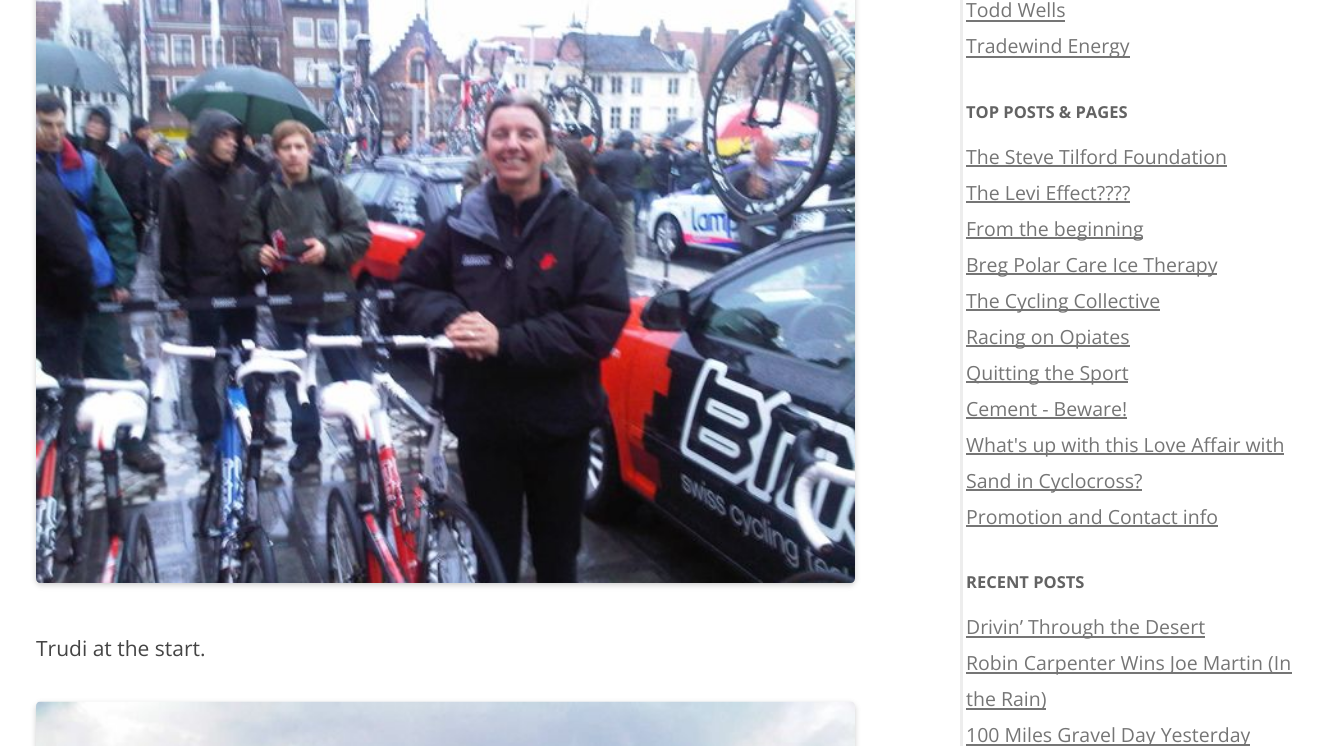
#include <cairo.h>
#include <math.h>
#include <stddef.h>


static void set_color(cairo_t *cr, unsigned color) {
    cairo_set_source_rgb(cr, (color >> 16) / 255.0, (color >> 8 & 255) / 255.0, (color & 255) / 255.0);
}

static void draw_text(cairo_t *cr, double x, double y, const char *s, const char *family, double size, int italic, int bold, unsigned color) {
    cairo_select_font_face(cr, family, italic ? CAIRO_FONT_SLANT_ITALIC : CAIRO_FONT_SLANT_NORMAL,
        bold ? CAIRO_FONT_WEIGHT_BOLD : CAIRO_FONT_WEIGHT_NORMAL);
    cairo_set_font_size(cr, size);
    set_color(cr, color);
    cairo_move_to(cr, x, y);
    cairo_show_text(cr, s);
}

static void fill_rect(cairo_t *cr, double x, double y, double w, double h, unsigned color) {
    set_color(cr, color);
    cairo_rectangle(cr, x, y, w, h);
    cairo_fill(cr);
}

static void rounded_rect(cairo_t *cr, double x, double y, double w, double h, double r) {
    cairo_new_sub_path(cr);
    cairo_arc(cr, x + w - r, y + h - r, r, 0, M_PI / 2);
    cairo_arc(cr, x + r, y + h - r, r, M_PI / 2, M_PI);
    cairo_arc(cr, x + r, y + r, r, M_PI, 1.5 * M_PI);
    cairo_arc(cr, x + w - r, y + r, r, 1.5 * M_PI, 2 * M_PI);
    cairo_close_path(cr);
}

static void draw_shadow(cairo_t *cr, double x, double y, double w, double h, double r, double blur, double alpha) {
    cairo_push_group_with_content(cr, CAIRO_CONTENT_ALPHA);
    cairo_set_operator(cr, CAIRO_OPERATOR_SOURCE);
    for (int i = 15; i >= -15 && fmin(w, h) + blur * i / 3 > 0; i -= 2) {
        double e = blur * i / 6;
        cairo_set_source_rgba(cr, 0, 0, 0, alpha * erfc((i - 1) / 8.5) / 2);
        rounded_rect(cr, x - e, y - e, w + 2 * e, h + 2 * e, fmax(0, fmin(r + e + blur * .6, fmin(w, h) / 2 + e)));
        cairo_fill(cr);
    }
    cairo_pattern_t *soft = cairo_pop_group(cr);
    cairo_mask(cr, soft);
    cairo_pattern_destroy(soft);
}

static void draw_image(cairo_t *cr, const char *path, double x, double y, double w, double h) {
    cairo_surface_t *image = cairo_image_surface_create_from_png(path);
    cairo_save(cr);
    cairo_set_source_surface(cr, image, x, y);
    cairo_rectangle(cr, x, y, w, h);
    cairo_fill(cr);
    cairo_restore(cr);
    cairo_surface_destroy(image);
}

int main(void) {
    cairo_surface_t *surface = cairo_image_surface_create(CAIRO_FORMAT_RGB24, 1329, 746);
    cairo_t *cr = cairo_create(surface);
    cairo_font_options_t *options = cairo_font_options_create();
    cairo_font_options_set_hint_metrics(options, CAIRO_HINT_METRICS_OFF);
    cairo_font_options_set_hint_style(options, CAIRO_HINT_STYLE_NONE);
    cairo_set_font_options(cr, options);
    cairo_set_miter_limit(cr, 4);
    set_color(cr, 0xFFFFFF);
    cairo_paint(cr);
    set_color(cr, 0x000000);
    draw_shadow(cr, 36, -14, 819, 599, 5, 3, 0.2);
    draw_image(cr, "assets/img1.png", 36, 0, 819, 583);
    draw_text(cr, 36, 656, "Trudi at the start.", "Open Sans", 21, 0, 0, 0x444444);
    set_color(cr, 0x000000);
    draw_shadow(cr, 36, 704, 819, 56, 5, 3, 0.2);
    draw_image(cr, "assets/img2.png", 36, 701, 819, 45);
    fill_rect(cr, 960, 0, 3, 746, 0xEDEDED);
    draw_text(cr, 966, 17, "Todd Wells", "Open Sans", 19.5, 0, 0, 0x757575);
    fill_rect(cr, 966, 20, 99, 2, 0x757575);
    fill_rect(cr, 966, 56, 164, 2, 0x757575);
    draw_text(cr, 966, 53, "Tradewind Energy", "Open Sans", 19.5, 0, 0, 0x757575);
    draw_text(cr, 966, 118, "TOP POSTS & PAGES", "Open Sans", 16.5, 0, 1, 0x636363);
    draw_text(cr, 966, 164, "The Steve Tilford Foundation", "Open Sans", 19.5, 0, 0, 0x757575);
    fill_rect(cr, 966, 165, 261, 2, 0x757575);
    draw_text(cr, 966, 200, "The Levi Effect?\077?\077", "Open Sans", 19.5, 0, 0, 0x757575);
    fill_rect(cr, 966, 201, 164, 2, 0x757575);
    fill_rect(cr, 966, 237, 177, 2, 0x757575);
    draw_text(cr, 966, 236, "From the beginning", "Open Sans", 19.5, 0, 0, 0x757575);
    fill_rect(cr, 966, 273, 251, 2, 0x757575);
    draw_text(cr, 966, 272, "Breg Polar Care Ice Therapy", "Open Sans", 19.5, 0, 0, 0x757575);
    fill_rect(cr, 966, 309, 194, 2, 0x757575);
    draw_text(cr, 966, 308, "The Cycling Collective", "Open Sans", 19.5, 0, 0, 0x757575);
    fill_rect(cr, 966, 345, 164, 2, 0x757575);
    draw_text(cr, 966, 344, "Racing on Opiates", "Open Sans", 19.5, 0, 0, 0x757575);
    fill_rect(cr, 966, 381, 162, 2, 0x757575);
    draw_text(cr, 966, 380, "Quitting the Sport", "Open Sans", 19.5, 0, 0, 0x757575);
    draw_text(cr, 966, 416, "Cement - Beware!", "Open Sans", 19.5, 0, 0, 0x757575);
    fill_rect(cr, 966, 417, 161, 2, 0x757575);
    fill_rect(cr, 966, 453, 318, 2, 0x757575);
    draw_text(cr, 966, 452, "What's up with this Love Affair with", "Open Sans", 19.5, 0, 0, 0x757575);
    fill_rect(cr, 966, 489, 176, 2, 0x757575);
    draw_text(cr, 966, 488, "Sand in Cyclocross?", "Open Sans", 19.5, 0, 0, 0x757575);
    draw_text(cr, 966, 524, "Promotion and Contact info", "Open Sans", 19.5, 0, 0, 0x757575);
    fill_rect(cr, 966, 525, 252, 2, 0x757575);
    draw_text(cr, 966, 588, "RECENT POSTS", "Open Sans", 16.5, 0, 1, 0x636363);
    fill_rect(cr, 966, 636, 239, 2, 0x757575);
    draw_text(cr, 966, 634, "Drivin’ Through the Desert", "Open Sans", 19.5, 0, 0, 0x757575);
    fill_rect(cr, 966, 672, 326, 2, 0x757575);
    draw_text(cr, 966, 670, "Robin Carpenter Wins Joe Martin (In", "Open Sans", 19.5, 0, 0, 0x757575);
    fill_rect(cr, 966, 708, 80, 2, 0x757575);
    draw_text(cr, 966, 706, "the Rain)", "Open Sans", 19.5, 0, 0, 0x757575);
    fill_rect(cr, 966, 744, 284, 2, 0x757575);
    draw_text(cr, 966, 742, "100 Miles Gravel Day Yesterday", "Open Sans", 19.5, 0, 0, 0x757575);
    cairo_surface_write_to_png(surface, "output.png");
    cairo_font_options_destroy(options);
    cairo_destroy(cr);
    cairo_surface_destroy(surface);
    return 0;
}
